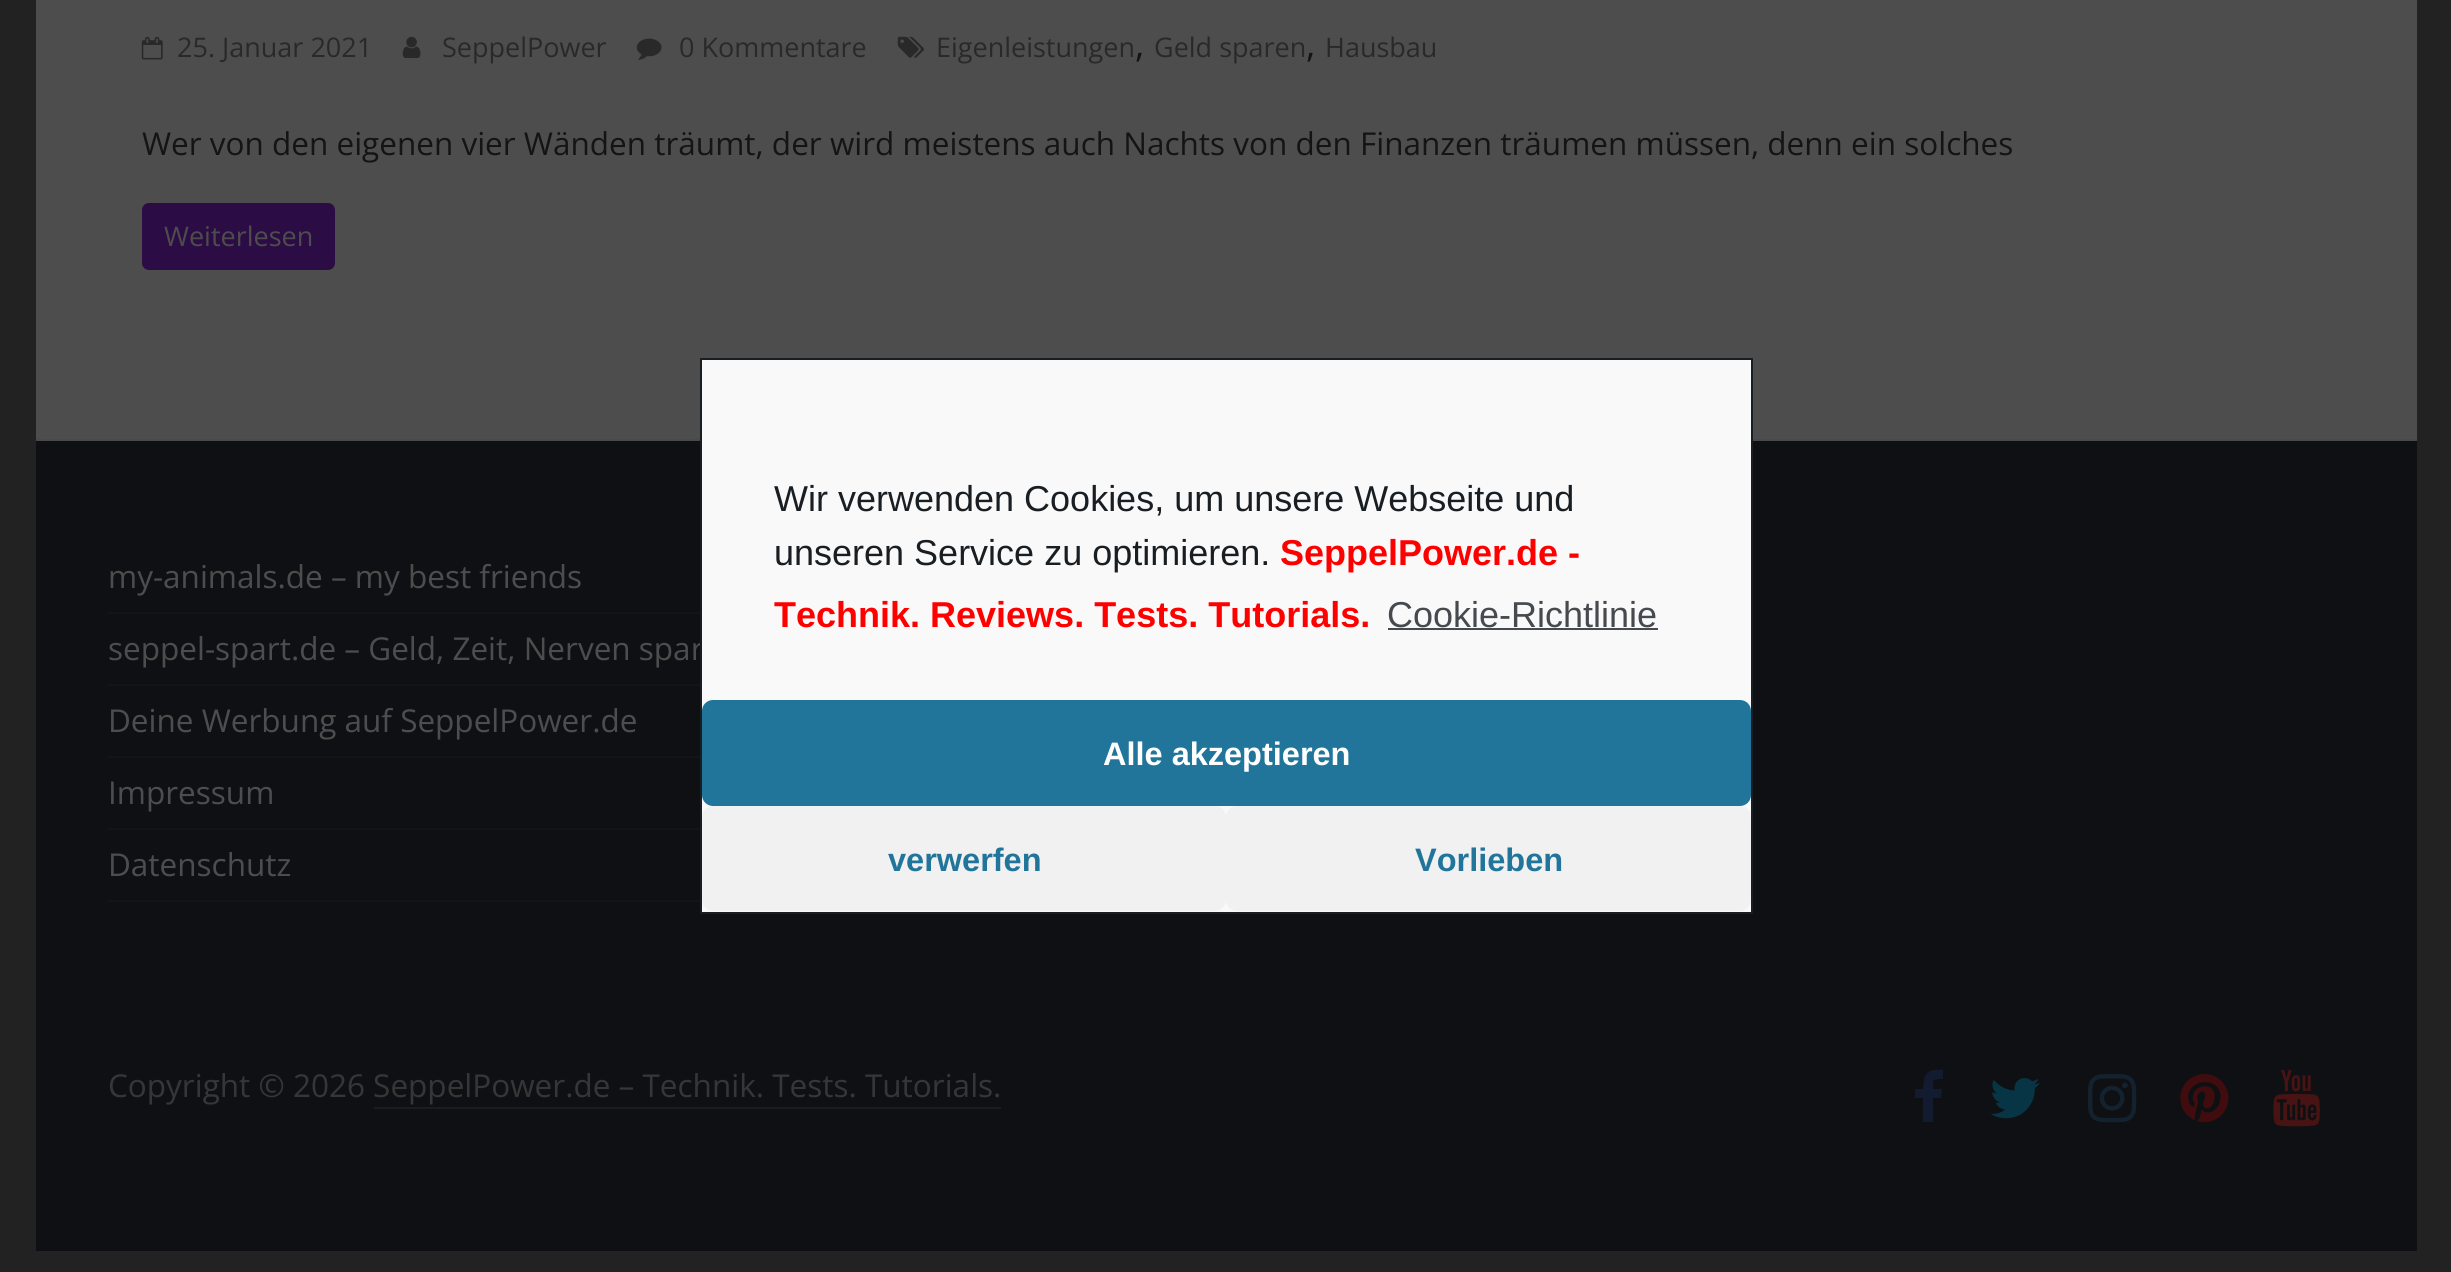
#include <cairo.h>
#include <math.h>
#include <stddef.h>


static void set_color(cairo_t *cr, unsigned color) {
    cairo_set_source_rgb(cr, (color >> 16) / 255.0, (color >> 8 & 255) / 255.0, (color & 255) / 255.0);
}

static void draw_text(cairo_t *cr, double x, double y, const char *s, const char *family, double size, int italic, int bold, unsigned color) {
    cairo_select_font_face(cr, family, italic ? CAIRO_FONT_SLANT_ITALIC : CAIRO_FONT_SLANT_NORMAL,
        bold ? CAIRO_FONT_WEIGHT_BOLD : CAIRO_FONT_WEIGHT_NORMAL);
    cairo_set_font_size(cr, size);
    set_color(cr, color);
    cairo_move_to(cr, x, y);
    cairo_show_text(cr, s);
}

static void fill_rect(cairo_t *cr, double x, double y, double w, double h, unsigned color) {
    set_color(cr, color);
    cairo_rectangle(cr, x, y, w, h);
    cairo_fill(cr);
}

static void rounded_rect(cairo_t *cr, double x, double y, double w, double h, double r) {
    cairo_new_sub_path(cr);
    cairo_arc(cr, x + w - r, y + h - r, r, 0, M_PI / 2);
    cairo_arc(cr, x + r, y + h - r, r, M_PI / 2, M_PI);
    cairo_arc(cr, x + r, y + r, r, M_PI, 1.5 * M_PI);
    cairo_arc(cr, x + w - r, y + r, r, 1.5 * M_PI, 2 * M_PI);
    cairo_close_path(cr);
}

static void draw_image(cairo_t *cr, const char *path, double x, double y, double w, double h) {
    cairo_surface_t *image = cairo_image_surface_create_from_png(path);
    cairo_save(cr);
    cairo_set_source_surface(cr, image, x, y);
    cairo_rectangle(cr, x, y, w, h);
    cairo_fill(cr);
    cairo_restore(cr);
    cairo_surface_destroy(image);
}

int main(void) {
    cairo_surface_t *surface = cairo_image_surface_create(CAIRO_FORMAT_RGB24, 2451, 1272);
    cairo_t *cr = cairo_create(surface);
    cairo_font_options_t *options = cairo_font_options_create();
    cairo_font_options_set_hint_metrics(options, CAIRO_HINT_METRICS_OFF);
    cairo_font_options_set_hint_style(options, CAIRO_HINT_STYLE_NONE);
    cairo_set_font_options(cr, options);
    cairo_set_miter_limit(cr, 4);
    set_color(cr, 0x222222);
    cairo_paint(cr);
    fill_rect(cr, 36, 0, 2381, 439, 0x4D4D4D);
    draw_image(cr, "assets/img1.png", 141, 36, 22, 24);
    draw_text(cr, 177, 57, "25. Januar 2021", "Open Sans", 27, 0, 0, 0x292929);
    draw_image(cr, "assets/img2.png", 402, 36, 19, 22);
    draw_text(cr, 442, 57, "SeppelPower", "Open Sans", 27, 0, 0, 0x292929);
    draw_image(cr, "assets/img3.png", 636, 38, 26, 22);
    draw_text(cr, 679, 57, "0 Kommentare", "Open Sans", 27, 0, 0, 0x292929);
    draw_image(cr, "assets/img4.png", 897, 36, 27, 22);
    draw_text(cr, 936, 57, "Eigenleistungen", "Open Sans", 27, 0, 0, 0x292929);
    draw_text(cr, 1135, 57, ",", "Open Sans", 36, 0, 0, 0x141414);
    draw_text(cr, 1154, 57, "Geld sparen", "Open Sans", 27, 0, 0, 0x292929);
    draw_text(cr, 1306, 57, ",", "Open Sans", 36, 0, 0, 0x141414);
    draw_text(cr, 1325, 57, "Hausbau", "Open Sans", 27, 0, 0, 0x292929);
    draw_text(cr, 142, 155, "Wer von den eigenen vier Wänden träumt, der wird meistens auch Nachts von den Finanzen träumen müssen, denn ein solches", "Open Sans", 31.5, 0, 0, 0x141414);
    set_color(cr, 0x2C0C44);
    rounded_rect(cr, 142, 203, 193, 67, 7);
    cairo_fill(cr);
    draw_text(cr, 164, 246, "Weiterlesen", "Open Sans", 27, 0, 0, 0x4D4D4D);
    fill_rect(cr, 36, 441, 2381, 810, 0x0E1013);
    fill_rect(cr, 36, 439, 2381, 2, 0x494949);
    fill_rect(cr, 108, 612, 592, 2, 0x141414);
    draw_text(cr, 108, 588, "my-animals.de – my best friends", "Open Sans", 31.5, 0, 0, 0x4D4D4D);
    fill_rect(cr, 108, 684, 592, 2, 0x141414);
    draw_text(cr, 108, 660, "seppel-spart.de – Geld, Zeit, Nerven spar", "Open Sans", 31.5, 0, 0, 0x4D4D4D);
    fill_rect(cr, 108, 756, 592, 2, 0x141414);
    draw_text(cr, 108, 732, "Deine Werbung auf SeppelPower.de", "Open Sans", 31.5, 0, 0, 0x4D4D4D);
    fill_rect(cr, 108, 828, 592, 2, 0x141414);
    draw_text(cr, 108, 804, "Impressum", "Open Sans", 31.5, 0, 0, 0x4D4D4D);
    fill_rect(cr, 108, 900, 592, 2, 0x141414);
    draw_text(cr, 108, 876, "Datenschutz", "Open Sans", 31.5, 0, 0, 0x4D4D4D);
    draw_text(cr, 108, 1097, "Copyright © 2026 SeppelPower.de – Technik. Tests. Tutorials.", "Open Sans", 31.5, 0, 0, 0x353737);
    fill_rect(cr, 374, 1107, 627, 2, 0x1B1C1D);
    set_color(cr, 0x121B2F);
    cairo_new_path(cr);
    cairo_move_to(cr, 1943, 1070);
    cairo_line_to(cr, 1943, 1079);
    cairo_curve_to(cr, 1932, 1079, 1933, 1079, 1933, 1089);
    cairo_line_to(cr, 1942, 1089);
    cairo_line_to(cr, 1941, 1098);
    cairo_line_to(cr, 1933, 1098);
    cairo_line_to(cr, 1933, 1122);
    cairo_line_to(cr, 1923, 1122);
    cairo_line_to(cr, 1923, 1098);
    cairo_line_to(cr, 1915, 1098);
    cairo_line_to(cr, 1915, 1089);
    cairo_line_to(cr, 1923, 1089);
    cairo_line_to(cr, 1924, 1080);
    cairo_curve_to(cr, 1925, 1070, 1935, 1069, 1943, 1070);
    cairo_close_path(cr);
    cairo_fill(cr);
    draw_image(cr, "assets/img5.png", 1990, 1078, 50, 41);
    draw_image(cr, "assets/img6.png", 2088, 1074, 49, 49);
    draw_image(cr, "assets/img7.png", 2180, 1074, 49, 49);
    draw_image(cr, "assets/img8.png", 2273, 1070, 47, 57);
    set_color(cr, 0xF9F9F9);
    cairo_rectangle(cr, 701, 359, 1051, 554);
    cairo_fill_preserve(cr);
    set_color(cr, 0x191E23);
    cairo_stroke(cr);
    draw_text(cr, 774, 511, "Wir verwenden Cookies, um unsere Webseite und", "Liberation Sans", 36, 0, 0, 0x191E23);
    draw_text(cr, 774, 565, "unseren Service zu optimieren.", "Liberation Sans", 36, 0, 0, 0x191E23);
    draw_text(cr, 1280, 565, "SeppelPower.de -", "Liberation Sans", 36, 0, 1, 0xFF0000);
    draw_text(cr, 774, 627, "Technik. Reviews. Tests. Tutorials.", "Liberation Sans", 36, 0, 1, 0xFF0000);
    draw_text(cr, 1387, 627, "Cookie-Richtlinie", "Liberation Sans", 36, 0, 0, 0x464A4E);
    fill_rect(cr, 1388, 628, 270, 2, 0x464A4E);
    set_color(cr, 0x21759B);
    rounded_rect(cr, 702, 700, 1049, 106, 11);
    cairo_fill(cr);
    draw_text(cr, 1103, 765, "Alle akzeptieren", "Liberation Sans", 32.5, 0, 1, 0xFFFFFF);
    set_color(cr, 0xF1F1F1);
    rounded_rect(cr, 702, 806, 524, 105, 11);
    cairo_fill(cr);
    draw_text(cr, 888, 871, "verwerfen", "Liberation Sans", 32.5, 0, 1, 0x21759B);
    set_color(cr, 0xF1F1F1);
    rounded_rect(cr, 1226, 806, 525, 105, 11);
    cairo_fill(cr);
    draw_text(cr, 1415, 871, "Vorlieben", "Liberation Sans", 32.5, 0, 1, 0x21759B);
    cairo_surface_write_to_png(surface, "output.png");
    cairo_font_options_destroy(options);
    cairo_destroy(cr);
    cairo_surface_destroy(surface);
    return 0;
}
